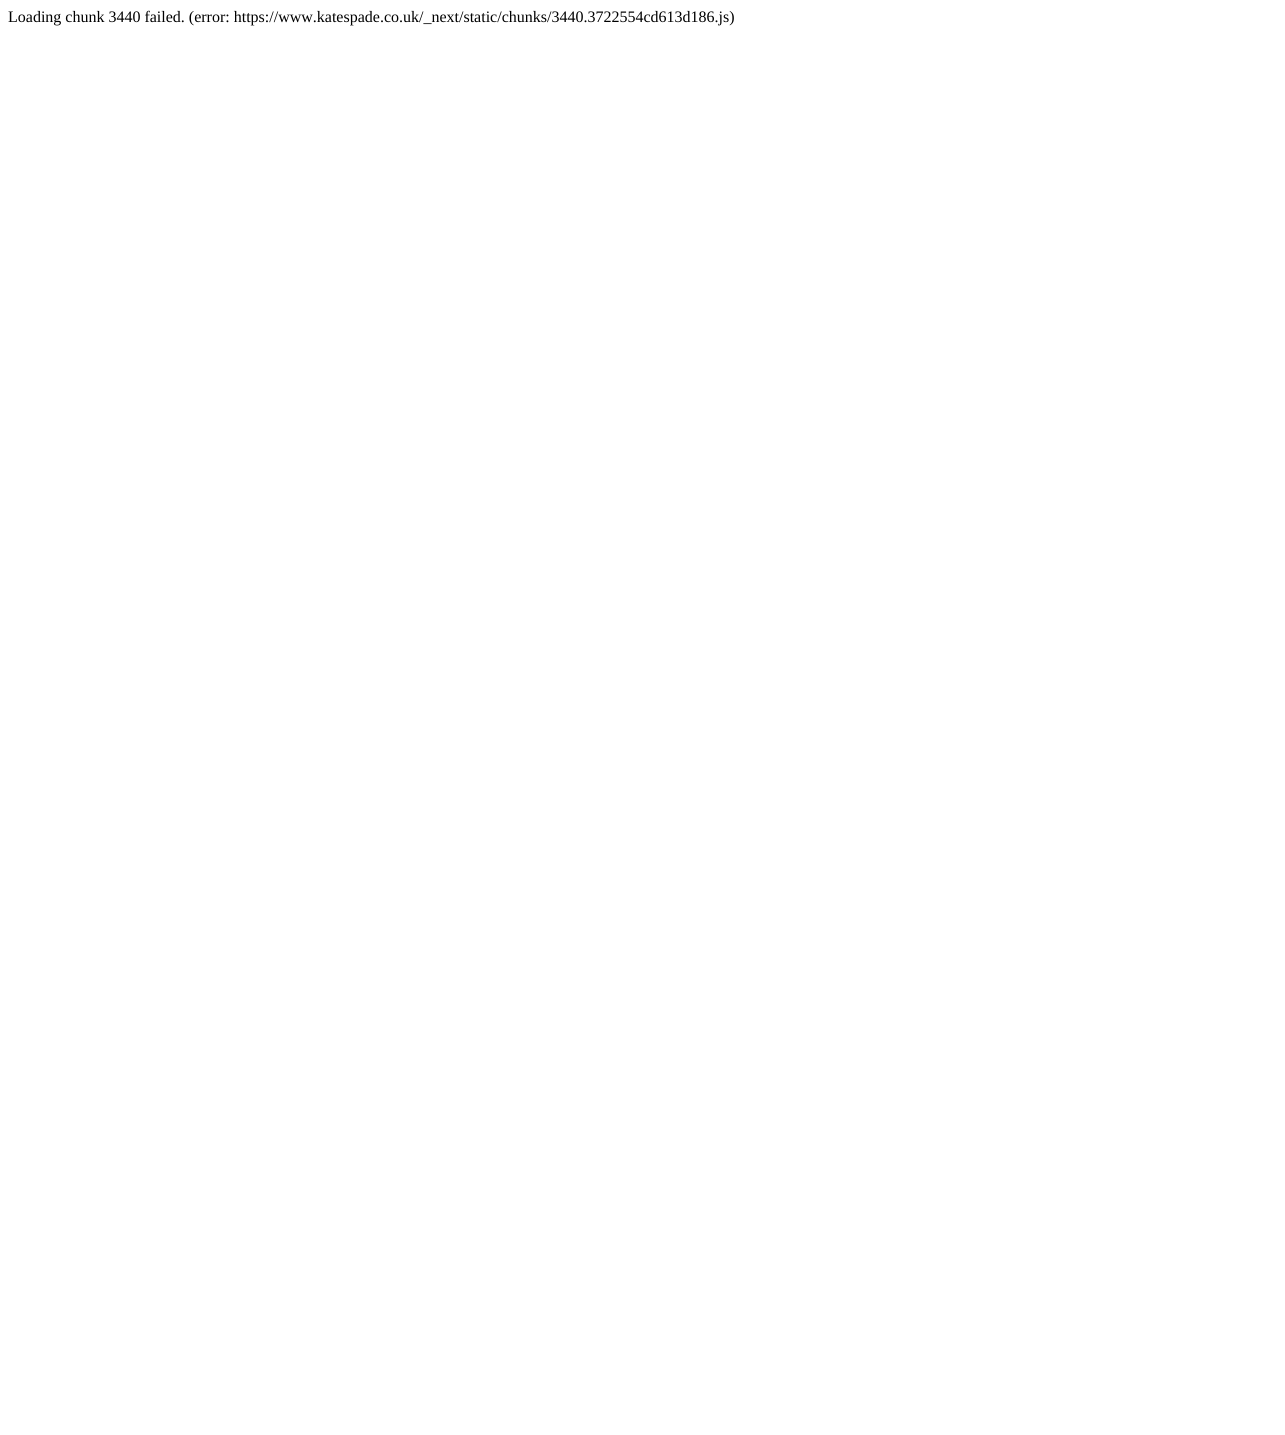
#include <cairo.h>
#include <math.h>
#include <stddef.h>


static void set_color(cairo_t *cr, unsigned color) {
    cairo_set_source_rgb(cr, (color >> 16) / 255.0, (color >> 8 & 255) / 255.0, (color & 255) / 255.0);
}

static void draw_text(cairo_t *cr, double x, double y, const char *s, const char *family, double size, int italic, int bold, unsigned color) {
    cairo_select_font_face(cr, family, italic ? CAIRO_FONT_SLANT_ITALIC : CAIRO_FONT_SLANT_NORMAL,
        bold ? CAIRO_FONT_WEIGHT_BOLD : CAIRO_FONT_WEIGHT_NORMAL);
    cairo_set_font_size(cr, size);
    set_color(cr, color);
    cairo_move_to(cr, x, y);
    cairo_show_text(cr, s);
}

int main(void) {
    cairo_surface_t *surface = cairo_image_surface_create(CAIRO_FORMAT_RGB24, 1285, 1435);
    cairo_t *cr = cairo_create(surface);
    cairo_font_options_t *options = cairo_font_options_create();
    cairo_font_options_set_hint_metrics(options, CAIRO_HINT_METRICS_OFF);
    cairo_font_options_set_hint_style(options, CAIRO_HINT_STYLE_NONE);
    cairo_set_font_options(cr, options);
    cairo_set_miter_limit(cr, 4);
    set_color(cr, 0xFFFFFF);
    cairo_paint(cr);
    draw_text(cr, 8, 22, "Loading chunk 3440 failed. (error: https://www.katespade.co.uk/_next/static/chunks/3440.3722554cd613d186.js)", "Liberation Serif", 16, 0, 0, 0x000000);
    cairo_surface_write_to_png(surface, "output.png");
    cairo_font_options_destroy(options);
    cairo_destroy(cr);
    cairo_surface_destroy(surface);
    return 0;
}
